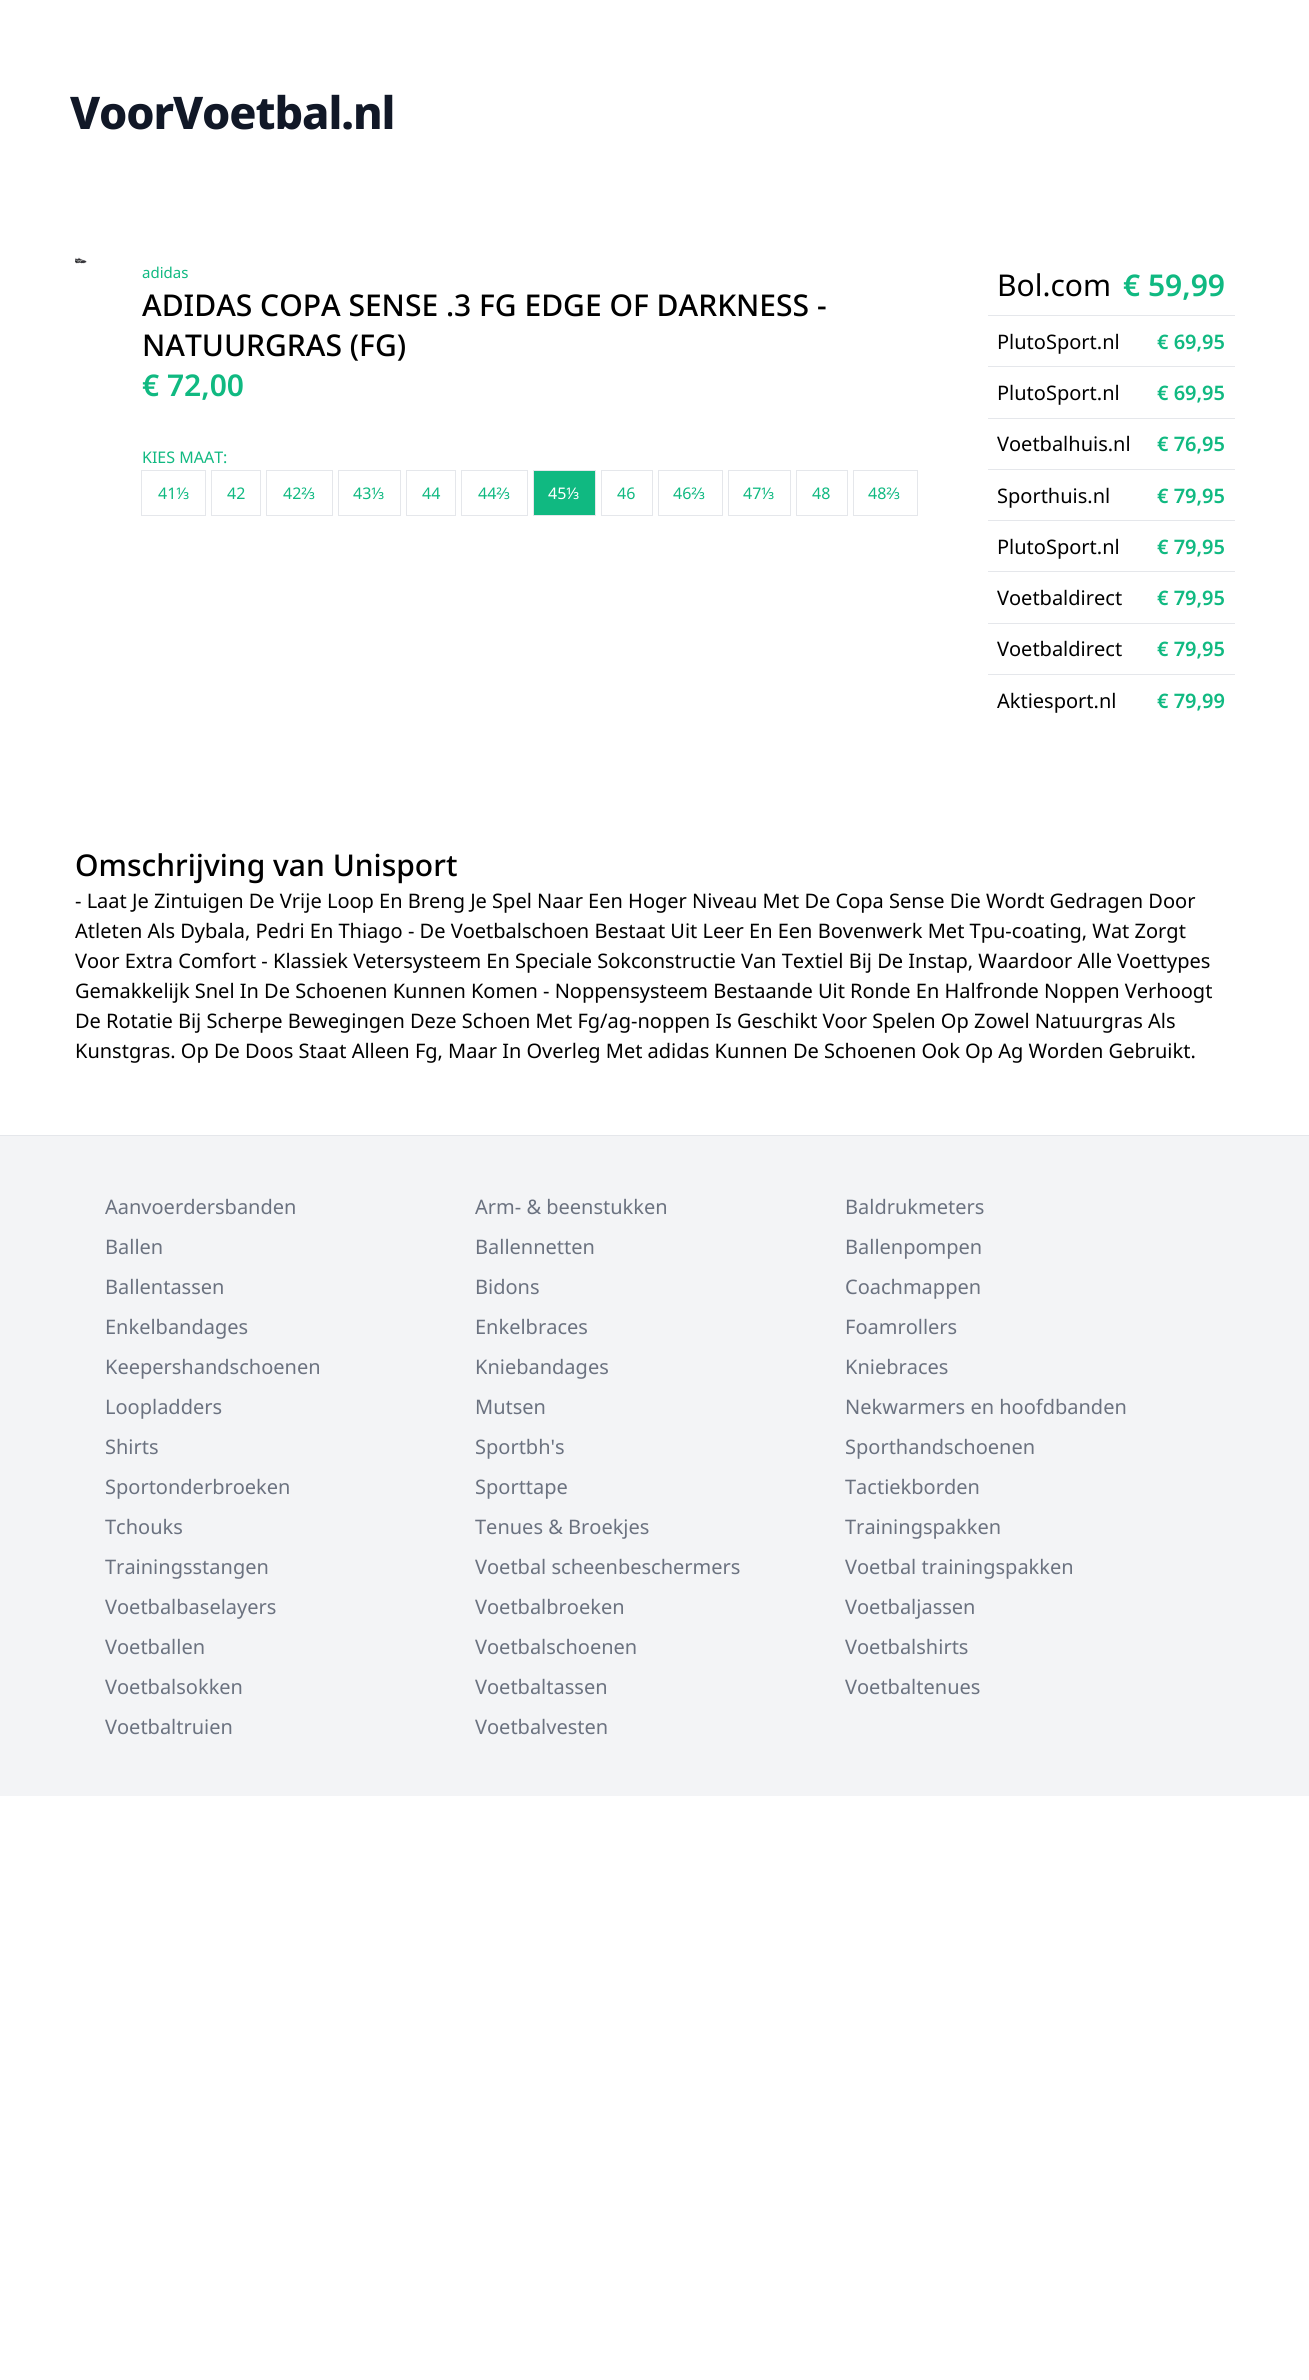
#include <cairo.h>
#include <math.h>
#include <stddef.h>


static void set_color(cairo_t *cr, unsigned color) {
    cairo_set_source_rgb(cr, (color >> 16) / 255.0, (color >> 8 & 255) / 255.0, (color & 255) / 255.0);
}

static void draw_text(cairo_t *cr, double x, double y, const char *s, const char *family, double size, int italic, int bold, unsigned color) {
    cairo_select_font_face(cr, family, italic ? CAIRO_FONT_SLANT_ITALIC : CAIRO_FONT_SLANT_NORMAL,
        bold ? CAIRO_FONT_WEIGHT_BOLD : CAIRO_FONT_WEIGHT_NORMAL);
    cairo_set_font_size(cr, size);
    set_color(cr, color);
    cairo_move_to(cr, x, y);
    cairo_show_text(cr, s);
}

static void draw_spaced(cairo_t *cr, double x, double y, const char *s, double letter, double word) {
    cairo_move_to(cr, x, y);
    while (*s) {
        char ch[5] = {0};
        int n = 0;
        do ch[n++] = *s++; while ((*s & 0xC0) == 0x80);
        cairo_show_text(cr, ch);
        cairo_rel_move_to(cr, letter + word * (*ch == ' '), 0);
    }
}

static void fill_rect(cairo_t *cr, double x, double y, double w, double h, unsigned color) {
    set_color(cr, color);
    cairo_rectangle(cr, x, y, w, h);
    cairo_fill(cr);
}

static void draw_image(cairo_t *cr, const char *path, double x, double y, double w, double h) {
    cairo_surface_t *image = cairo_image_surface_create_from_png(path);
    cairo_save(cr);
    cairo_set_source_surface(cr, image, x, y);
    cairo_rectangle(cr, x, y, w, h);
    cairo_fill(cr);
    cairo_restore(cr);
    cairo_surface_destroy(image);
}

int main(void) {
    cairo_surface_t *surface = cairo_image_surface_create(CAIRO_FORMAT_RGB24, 1309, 2380);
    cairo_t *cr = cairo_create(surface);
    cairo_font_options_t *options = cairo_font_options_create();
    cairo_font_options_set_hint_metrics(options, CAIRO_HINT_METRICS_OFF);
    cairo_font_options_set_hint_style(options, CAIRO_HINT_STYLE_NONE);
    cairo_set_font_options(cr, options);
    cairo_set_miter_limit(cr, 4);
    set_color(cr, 0xFFFFFF);
    cairo_paint(cr);
    cairo_select_font_face(cr, "Noto Sans ExtraBold", CAIRO_FONT_SLANT_NORMAL, CAIRO_FONT_WEIGHT_NORMAL);
    cairo_set_font_size(cr, 45);
    set_color(cr, 0x111827);
    draw_spaced(cr, 70, 129, "VoorVoetbal.nl", -1.1, 0);
    draw_image(cr, "assets/img1.png", 75, 257, 12, 7);
    draw_text(cr, 142, 278, "adidas", "Noto Sans", 15, 0, 0, 0x10B981);
    draw_text(cr, 142, 316, "ADIDAS COPA SENSE .3 FG EDGE OF DARKNESS -", "Noto Sans Medium", 30, 0, 0, 0x000000);
    draw_text(cr, 142, 356, "NATUURGRAS (FG)", "Noto Sans Medium", 30, 0, 0, 0x000000);
    draw_text(cr, 142, 396, "€ 72,00", "Noto Sans SemiBold", 30, 0, 0, 0x10B981);
    draw_text(cr, 142, 463, "KIES MAAT:", "Noto Sans", 16, 0, 0, 0x10B981);
    cairo_rectangle(cr, 141.5, 470.5, 64, 45);
    set_color(cr, 0xE5E7EB);
    cairo_set_line_width(cr, 1);
    cairo_stroke(cr);
    draw_text(cr, 158, 499, "41⅓", "Noto Sans", 16, 0, 0, 0x10B981);
    cairo_rectangle(cr, 211.5, 470.5, 49, 45);
    set_color(cr, 0xE5E7EB);
    cairo_stroke(cr);
    draw_text(cr, 227, 499, "42", "Noto Sans", 16, 0, 0, 0x10B981);
    cairo_rectangle(cr, 266.5, 470.5, 66, 45);
    set_color(cr, 0xE5E7EB);
    cairo_stroke(cr);
    draw_text(cr, 283, 499, "42⅔", "Noto Sans", 16, 0, 0, 0x10B981);
    cairo_rectangle(cr, 338.5, 470.5, 62, 45);
    set_color(cr, 0xE5E7EB);
    cairo_stroke(cr);
    draw_text(cr, 353, 499, "43⅓", "Noto Sans", 16, 0, 0, 0x10B981);
    cairo_rectangle(cr, 406.5, 470.5, 49, 45);
    set_color(cr, 0xE5E7EB);
    cairo_stroke(cr);
    draw_text(cr, 422, 499, "44", "Noto Sans", 16, 0, 0, 0x10B981);
    cairo_rectangle(cr, 461.5, 470.5, 66, 45);
    set_color(cr, 0xE5E7EB);
    cairo_stroke(cr);
    draw_text(cr, 478, 499, "44⅔", "Noto Sans", 16, 0, 0, 0x10B981);
    cairo_rectangle(cr, 533.5, 470.5, 62, 45);
    cairo_fill_preserve(cr);
    set_color(cr, 0xE5E7EB);
    cairo_stroke(cr);
    draw_text(cr, 548, 499, "45⅓", "Noto Sans", 16, 0, 0, 0xFFFFFF);
    cairo_rectangle(cr, 601.5, 470.5, 51, 45);
    set_color(cr, 0xE5E7EB);
    cairo_stroke(cr);
    draw_text(cr, 617, 499, "46", "Noto Sans", 16, 0, 0, 0x10B981);
    cairo_rectangle(cr, 658.5, 470.5, 64, 45);
    set_color(cr, 0xE5E7EB);
    cairo_stroke(cr);
    draw_text(cr, 673, 499, "46⅔", "Noto Sans", 16, 0, 0, 0x10B981);
    cairo_rectangle(cr, 728.5, 470.5, 62, 45);
    set_color(cr, 0xE5E7EB);
    cairo_stroke(cr);
    draw_text(cr, 743, 499, "47⅓", "Noto Sans", 16, 0, 0, 0x10B981);
    cairo_rectangle(cr, 796.5, 470.5, 51, 45);
    set_color(cr, 0xE5E7EB);
    cairo_stroke(cr);
    draw_text(cr, 812, 499, "48", "Noto Sans", 16, 0, 0, 0x10B981);
    cairo_rectangle(cr, 853.5, 470.5, 64, 45);
    set_color(cr, 0xE5E7EB);
    cairo_stroke(cr);
    draw_text(cr, 868, 499, "48⅔", "Noto Sans", 16, 0, 0, 0x10B981);
    draw_text(cr, 997, 296, "Bol.com", "Noto Sans", 30, 0, 0, 0x000000);
    draw_text(cr, 1123, 296, "€ 59,99", "Noto Sans SemiBold", 30, 0, 0, 0x10B981);
    fill_rect(cr, 988, 315, 247, 1, 0xE5E7EB);
    draw_text(cr, 997, 349, "PlutoSport.nl", "Noto Sans", 20, 0, 0, 0x000000);
    draw_text(cr, 1157, 349, "€ 69,95", "Noto Sans SemiBold", 20, 0, 0, 0x10B981);
    fill_rect(cr, 988, 366, 247, 1, 0xE5E7EB);
    draw_text(cr, 997, 400, "PlutoSport.nl", "Noto Sans", 20, 0, 0, 0x000000);
    draw_text(cr, 1157, 400, "€ 69,95", "Noto Sans SemiBold", 20, 0, 0, 0x10B981);
    fill_rect(cr, 988, 418, 247, 1, 0xE5E7EB);
    draw_text(cr, 997, 451, "Voetbalhuis.nl", "Noto Sans", 20, 0, 0, 0x000000);
    draw_text(cr, 1157, 451, "€ 76,95", "Noto Sans SemiBold", 20, 0, 0, 0x10B981);
    fill_rect(cr, 988, 469, 247, 1, 0xE5E7EB);
    draw_text(cr, 997, 503, "Sporthuis.nl", "Noto Sans", 20, 0, 0, 0x000000);
    draw_text(cr, 1157, 503, "€ 79,95", "Noto Sans SemiBold", 20, 0, 0, 0x10B981);
    fill_rect(cr, 988, 520, 247, 1, 0xE5E7EB);
    draw_text(cr, 997, 554, "PlutoSport.nl", "Noto Sans", 20, 0, 0, 0x000000);
    draw_text(cr, 1157, 554, "€ 79,95", "Noto Sans SemiBold", 20, 0, 0, 0x10B981);
    fill_rect(cr, 988, 571, 247, 1, 0xE5E7EB);
    draw_text(cr, 997, 605, "Voetbaldirect", "Noto Sans", 20, 0, 0, 0x000000);
    draw_text(cr, 1157, 605, "€ 79,95", "Noto Sans SemiBold", 20, 0, 0, 0x10B981);
    fill_rect(cr, 988, 623, 247, 1, 0xE5E7EB);
    draw_text(cr, 997, 656, "Voetbaldirect", "Noto Sans", 20, 0, 0, 0x000000);
    draw_text(cr, 1157, 656, "€ 79,95", "Noto Sans SemiBold", 20, 0, 0, 0x10B981);
    fill_rect(cr, 988, 674, 247, 1, 0xE5E7EB);
    draw_text(cr, 997, 708, "Aktiesport.nl", "Noto Sans", 20, 0, 0, 0x000000);
    draw_text(cr, 1157, 708, "€ 79,99", "Noto Sans SemiBold", 20, 0, 0, 0x10B981);
    draw_text(cr, 75, 876, "Omschrijving van Unisport", "Noto Sans Medium", 30, 0, 0, 0x000000);
    draw_text(cr, 75, 908, "- Laat Je Zintuigen De Vrije Loop En Breng Je Spel Naar Een Hoger Niveau Met De Copa Sense Die Wordt Gedragen Door", "Noto Sans", 20, 0, 0, 0x000000);
    draw_text(cr, 75, 938, "Atleten Als Dybala, Pedri En Thiago - De Voetbalschoen Bestaat Uit Leer En Een Bovenwerk Met Tpu-coating, Wat Zorgt", "Noto Sans", 20, 0, 0, 0x000000);
    draw_text(cr, 75, 968, "Voor Extra Comfort - Klassiek Vetersysteem En Speciale Sokconstructie Van Textiel Bij De Instap, Waardoor Alle Voettypes", "Noto Sans", 20, 0, 0, 0x000000);
    draw_text(cr, 75, 998, "Gemakkelijk Snel In De Schoenen Kunnen Komen - Noppensysteem Bestaande Uit Ronde En Halfronde Noppen Verhoogt", "Noto Sans", 20, 0, 0, 0x000000);
    draw_text(cr, 75, 1028, "De Rotatie Bij Scherpe Bewegingen Deze Schoen Met Fg/ag-noppen Is Geschikt Voor Spelen Op Zowel Natuurgras Als", "Noto Sans", 20, 0, 0, 0x000000);
    draw_text(cr, 75, 1058, "Kunstgras. Op De Doos Staat Alleen Fg, Maar In Overleg Met adidas Kunnen De Schoenen Ook Op Ag Worden Gebruikt.", "Noto Sans", 20, 0, 0, 0x000000);
    fill_rect(cr, 0, 1136, 1309, 660, 0xF3F4F6);
    fill_rect(cr, 0, 1135, 1309, 1, 0xE5E7EB);
    draw_text(cr, 105, 1214, "Aanvoerdersbanden", "Noto Sans", 20, 0, 0, 0x6B7280);
    draw_text(cr, 475, 1214, "Arm- & beenstukken", "Noto Sans", 20, 0, 0, 0x6B7280);
    draw_text(cr, 845, 1214, "Baldrukmeters", "Noto Sans", 20, 0, 0, 0x6B7280);
    draw_text(cr, 105, 1254, "Ballen", "Noto Sans", 20, 0, 0, 0x6B7280);
    draw_text(cr, 475, 1254, "Ballennetten", "Noto Sans", 20, 0, 0, 0x6B7280);
    draw_text(cr, 845, 1254, "Ballenpompen", "Noto Sans", 20, 0, 0, 0x6B7280);
    draw_text(cr, 105, 1294, "Ballentassen", "Noto Sans", 20, 0, 0, 0x6B7280);
    draw_text(cr, 475, 1294, "Bidons", "Noto Sans", 20, 0, 0, 0x6B7280);
    draw_text(cr, 845, 1294, "Coachmappen", "Noto Sans", 20, 0, 0, 0x6B7280);
    draw_text(cr, 105, 1334, "Enkelbandages", "Noto Sans", 20, 0, 0, 0x6B7280);
    draw_text(cr, 475, 1334, "Enkelbraces", "Noto Sans", 20, 0, 0, 0x6B7280);
    draw_text(cr, 845, 1334, "Foamrollers", "Noto Sans", 20, 0, 0, 0x6B7280);
    draw_text(cr, 105, 1374, "Keepershandschoenen", "Noto Sans", 20, 0, 0, 0x6B7280);
    draw_text(cr, 475, 1374, "Kniebandages", "Noto Sans", 20, 0, 0, 0x6B7280);
    draw_text(cr, 845, 1374, "Kniebraces", "Noto Sans", 20, 0, 0, 0x6B7280);
    draw_text(cr, 105, 1414, "Loopladders", "Noto Sans", 20, 0, 0, 0x6B7280);
    draw_text(cr, 475, 1414, "Mutsen", "Noto Sans", 20, 0, 0, 0x6B7280);
    draw_text(cr, 845, 1414, "Nekwarmers en hoofdbanden", "Noto Sans", 20, 0, 0, 0x6B7280);
    draw_text(cr, 105, 1454, "Shirts", "Noto Sans", 20, 0, 0, 0x6B7280);
    draw_text(cr, 475, 1454, "Sportbh's", "Noto Sans", 20, 0, 0, 0x6B7280);
    draw_text(cr, 845, 1454, "Sporthandschoenen", "Noto Sans", 20, 0, 0, 0x6B7280);
    draw_text(cr, 105, 1494, "Sportonderbroeken", "Noto Sans", 20, 0, 0, 0x6B7280);
    draw_text(cr, 475, 1494, "Sporttape", "Noto Sans", 20, 0, 0, 0x6B7280);
    draw_text(cr, 845, 1494, "Tactiekborden", "Noto Sans", 20, 0, 0, 0x6B7280);
    draw_text(cr, 105, 1534, "Tchouks", "Noto Sans", 20, 0, 0, 0x6B7280);
    draw_text(cr, 475, 1534, "Tenues & Broekjes", "Noto Sans", 20, 0, 0, 0x6B7280);
    draw_text(cr, 845, 1534, "Trainingspakken", "Noto Sans", 20, 0, 0, 0x6B7280);
    draw_text(cr, 105, 1574, "Trainingsstangen", "Noto Sans", 20, 0, 0, 0x6B7280);
    draw_text(cr, 475, 1574, "Voetbal scheenbeschermers", "Noto Sans", 20, 0, 0, 0x6B7280);
    draw_text(cr, 845, 1574, "Voetbal trainingspakken", "Noto Sans", 20, 0, 0, 0x6B7280);
    draw_text(cr, 105, 1614, "Voetbalbaselayers", "Noto Sans", 20, 0, 0, 0x6B7280);
    draw_text(cr, 475, 1614, "Voetbalbroeken", "Noto Sans", 20, 0, 0, 0x6B7280);
    draw_text(cr, 845, 1614, "Voetbaljassen", "Noto Sans", 20, 0, 0, 0x6B7280);
    draw_text(cr, 105, 1654, "Voetballen", "Noto Sans", 20, 0, 0, 0x6B7280);
    draw_text(cr, 475, 1654, "Voetbalschoenen", "Noto Sans", 20, 0, 0, 0x6B7280);
    draw_text(cr, 845, 1654, "Voetbalshirts", "Noto Sans", 20, 0, 0, 0x6B7280);
    draw_text(cr, 105, 1694, "Voetbalsokken", "Noto Sans", 20, 0, 0, 0x6B7280);
    draw_text(cr, 475, 1694, "Voetbaltassen", "Noto Sans", 20, 0, 0, 0x6B7280);
    draw_text(cr, 845, 1694, "Voetbaltenues", "Noto Sans", 20, 0, 0, 0x6B7280);
    draw_text(cr, 105, 1734, "Voetbaltruien", "Noto Sans", 20, 0, 0, 0x6B7280);
    draw_text(cr, 475, 1734, "Voetbalvesten", "Noto Sans", 20, 0, 0, 0x6B7280);
    cairo_surface_write_to_png(surface, "output.png");
    cairo_font_options_destroy(options);
    cairo_destroy(cr);
    cairo_surface_destroy(surface);
    return 0;
}
